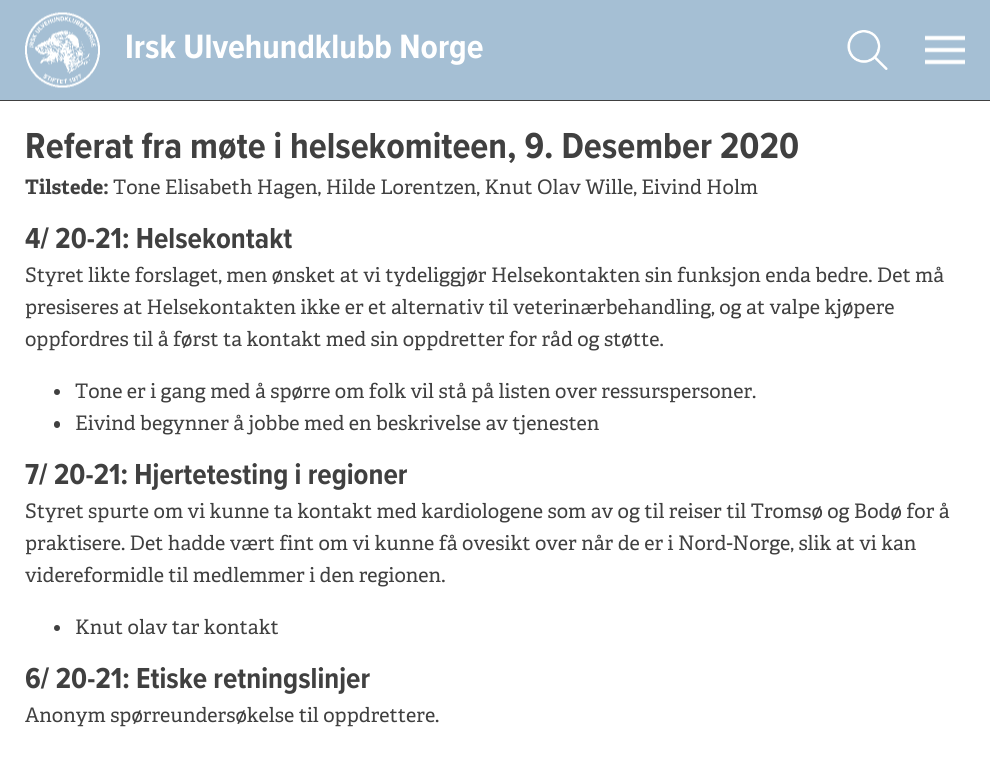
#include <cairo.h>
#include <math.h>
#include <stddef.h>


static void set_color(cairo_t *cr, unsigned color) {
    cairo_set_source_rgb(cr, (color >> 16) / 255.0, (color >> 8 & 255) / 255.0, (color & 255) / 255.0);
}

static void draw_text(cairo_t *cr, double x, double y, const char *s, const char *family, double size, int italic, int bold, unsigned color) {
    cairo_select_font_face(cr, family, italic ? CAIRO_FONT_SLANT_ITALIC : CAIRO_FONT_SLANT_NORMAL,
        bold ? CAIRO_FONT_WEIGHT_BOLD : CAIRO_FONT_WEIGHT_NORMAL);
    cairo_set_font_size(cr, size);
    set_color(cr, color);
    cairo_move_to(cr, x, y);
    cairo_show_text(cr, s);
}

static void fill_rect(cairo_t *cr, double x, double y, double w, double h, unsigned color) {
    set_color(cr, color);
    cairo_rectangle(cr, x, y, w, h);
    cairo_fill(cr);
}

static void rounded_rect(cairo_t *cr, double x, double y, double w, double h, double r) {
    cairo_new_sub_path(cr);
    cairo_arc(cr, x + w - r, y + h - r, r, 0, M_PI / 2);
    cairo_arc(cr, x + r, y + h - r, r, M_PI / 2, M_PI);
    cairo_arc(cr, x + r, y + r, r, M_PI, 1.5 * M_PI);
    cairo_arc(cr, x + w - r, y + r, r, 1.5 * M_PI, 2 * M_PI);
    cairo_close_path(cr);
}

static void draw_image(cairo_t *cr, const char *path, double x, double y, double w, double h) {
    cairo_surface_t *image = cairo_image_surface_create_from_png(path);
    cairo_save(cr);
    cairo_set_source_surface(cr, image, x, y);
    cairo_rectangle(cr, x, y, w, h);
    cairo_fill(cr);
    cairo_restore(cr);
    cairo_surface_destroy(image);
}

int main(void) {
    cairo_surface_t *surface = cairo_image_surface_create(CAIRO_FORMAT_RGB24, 990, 759);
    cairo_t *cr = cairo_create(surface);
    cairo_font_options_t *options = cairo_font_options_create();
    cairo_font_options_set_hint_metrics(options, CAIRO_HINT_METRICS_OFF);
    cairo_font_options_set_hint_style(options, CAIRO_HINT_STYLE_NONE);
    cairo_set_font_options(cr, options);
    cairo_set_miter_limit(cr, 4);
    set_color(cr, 0xFFFFFF);
    cairo_paint(cr);
    fill_rect(cr, 0, 0, 990, 100, 0xA5BFD4);
    fill_rect(cr, 0, 100, 990, 1, 0x404040);
    draw_image(cr, "assets/img1.png", 25, 12, 75, 76);
    draw_text(cr, 125, 58, "Irsk Ulvehundklubb Norge", "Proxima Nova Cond", 35, 0, 1, 0xFFFFFF);
    draw_image(cr, "assets/img2.png", 847, 30, 41, 40);
    draw_image(cr, "assets/img3.png", 925, 35, 40, 30);
    draw_text(cr, 25, 158, "Referat fra møte i helsekomiteen, 9. Desember 2020", "Proxima Nova Cond", 37.5, 0, 1, 0x404040);
    draw_text(cr, 25, 194, "Tilstede:", "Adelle", 20, 0, 1, 0x404040);
    draw_text(cr, 113, 194, "Tone Elisabeth Hagen, Hilde Lorentzen, Knut Olav Wille, Eivind Holm", "Adelle", 20, 0, 0, 0x404040);
    draw_text(cr, 25, 248, "4/ 20-21: Helsekontakt", "Proxima Nova Cond", 30, 0, 1, 0x404040);
    draw_text(cr, 25, 282, "Styret likte forslaget, men ønsket at vi tydeliggjør Helsekontakten sin funksjon enda bedre. Det må", "Adelle", 20, 0, 0, 0x404040);
    draw_text(cr, 25, 314, "presiseres at Helsekontakten ikke er et alternativ til veterinærbehandling, og at valpe kjøpere", "Adelle", 20, 0, 0, 0x404040);
    draw_text(cr, 25, 346, "oppfordres til å først ta kontakt med sin oppdretter for råd og støtte.", "Adelle", 20, 0, 0, 0x404040);
    cairo_new_path(cr);
    cairo_arc(cr, 57, 392, 3, 0, 2 * M_PI);
    cairo_fill(cr);
    draw_text(cr, 75, 398, "Tone er i gang med å spørre om folk vil stå på listen over ressurspersoner.", "Adelle", 20, 0, 0, 0x404040);
    rounded_rect(cr, 54, 421, 6, 7, 3);
    cairo_fill(cr);
    draw_text(cr, 75, 430, "Eivind begynner å jobbe med en beskrivelse av tjenesten", "Adelle", 20, 0, 0, 0x404040);
    draw_text(cr, 25, 484, "7/ 20-21: Hjertetesting i regioner", "Proxima Nova Cond", 30, 0, 1, 0x404040);
    draw_text(cr, 25, 518, "Styret spurte om vi kunne ta kontakt med kardiologene som av og til reiser til Tromsø og Bodø for å", "Adelle", 20, 0, 0, 0x404040);
    draw_text(cr, 25, 550, "praktisere. Det hadde vært fint om vi kunne få ovesikt over når de er i Nord-Norge, slik at vi kan", "Adelle", 20, 0, 0, 0x404040);
    draw_text(cr, 25, 582, "videreformidle til medlemmer i den regionen.", "Adelle", 20, 0, 0, 0x404040);
    cairo_new_path(cr);
    cairo_arc(cr, 57, 628, 3, 0, 2 * M_PI);
    cairo_fill(cr);
    draw_text(cr, 75, 634, "Knut olav tar kontakt", "Adelle", 20, 0, 0, 0x404040);
    draw_text(cr, 25, 688, "6/ 20-21: Etiske retningslinjer", "Proxima Nova Cond", 30, 0, 1, 0x404040);
    draw_text(cr, 25, 722, "Anonym spørreundersøkelse til oppdrettere.", "Adelle", 20, 0, 0, 0x404040);
    cairo_surface_write_to_png(surface, "output.png");
    cairo_font_options_destroy(options);
    cairo_destroy(cr);
    cairo_surface_destroy(surface);
    return 0;
}
